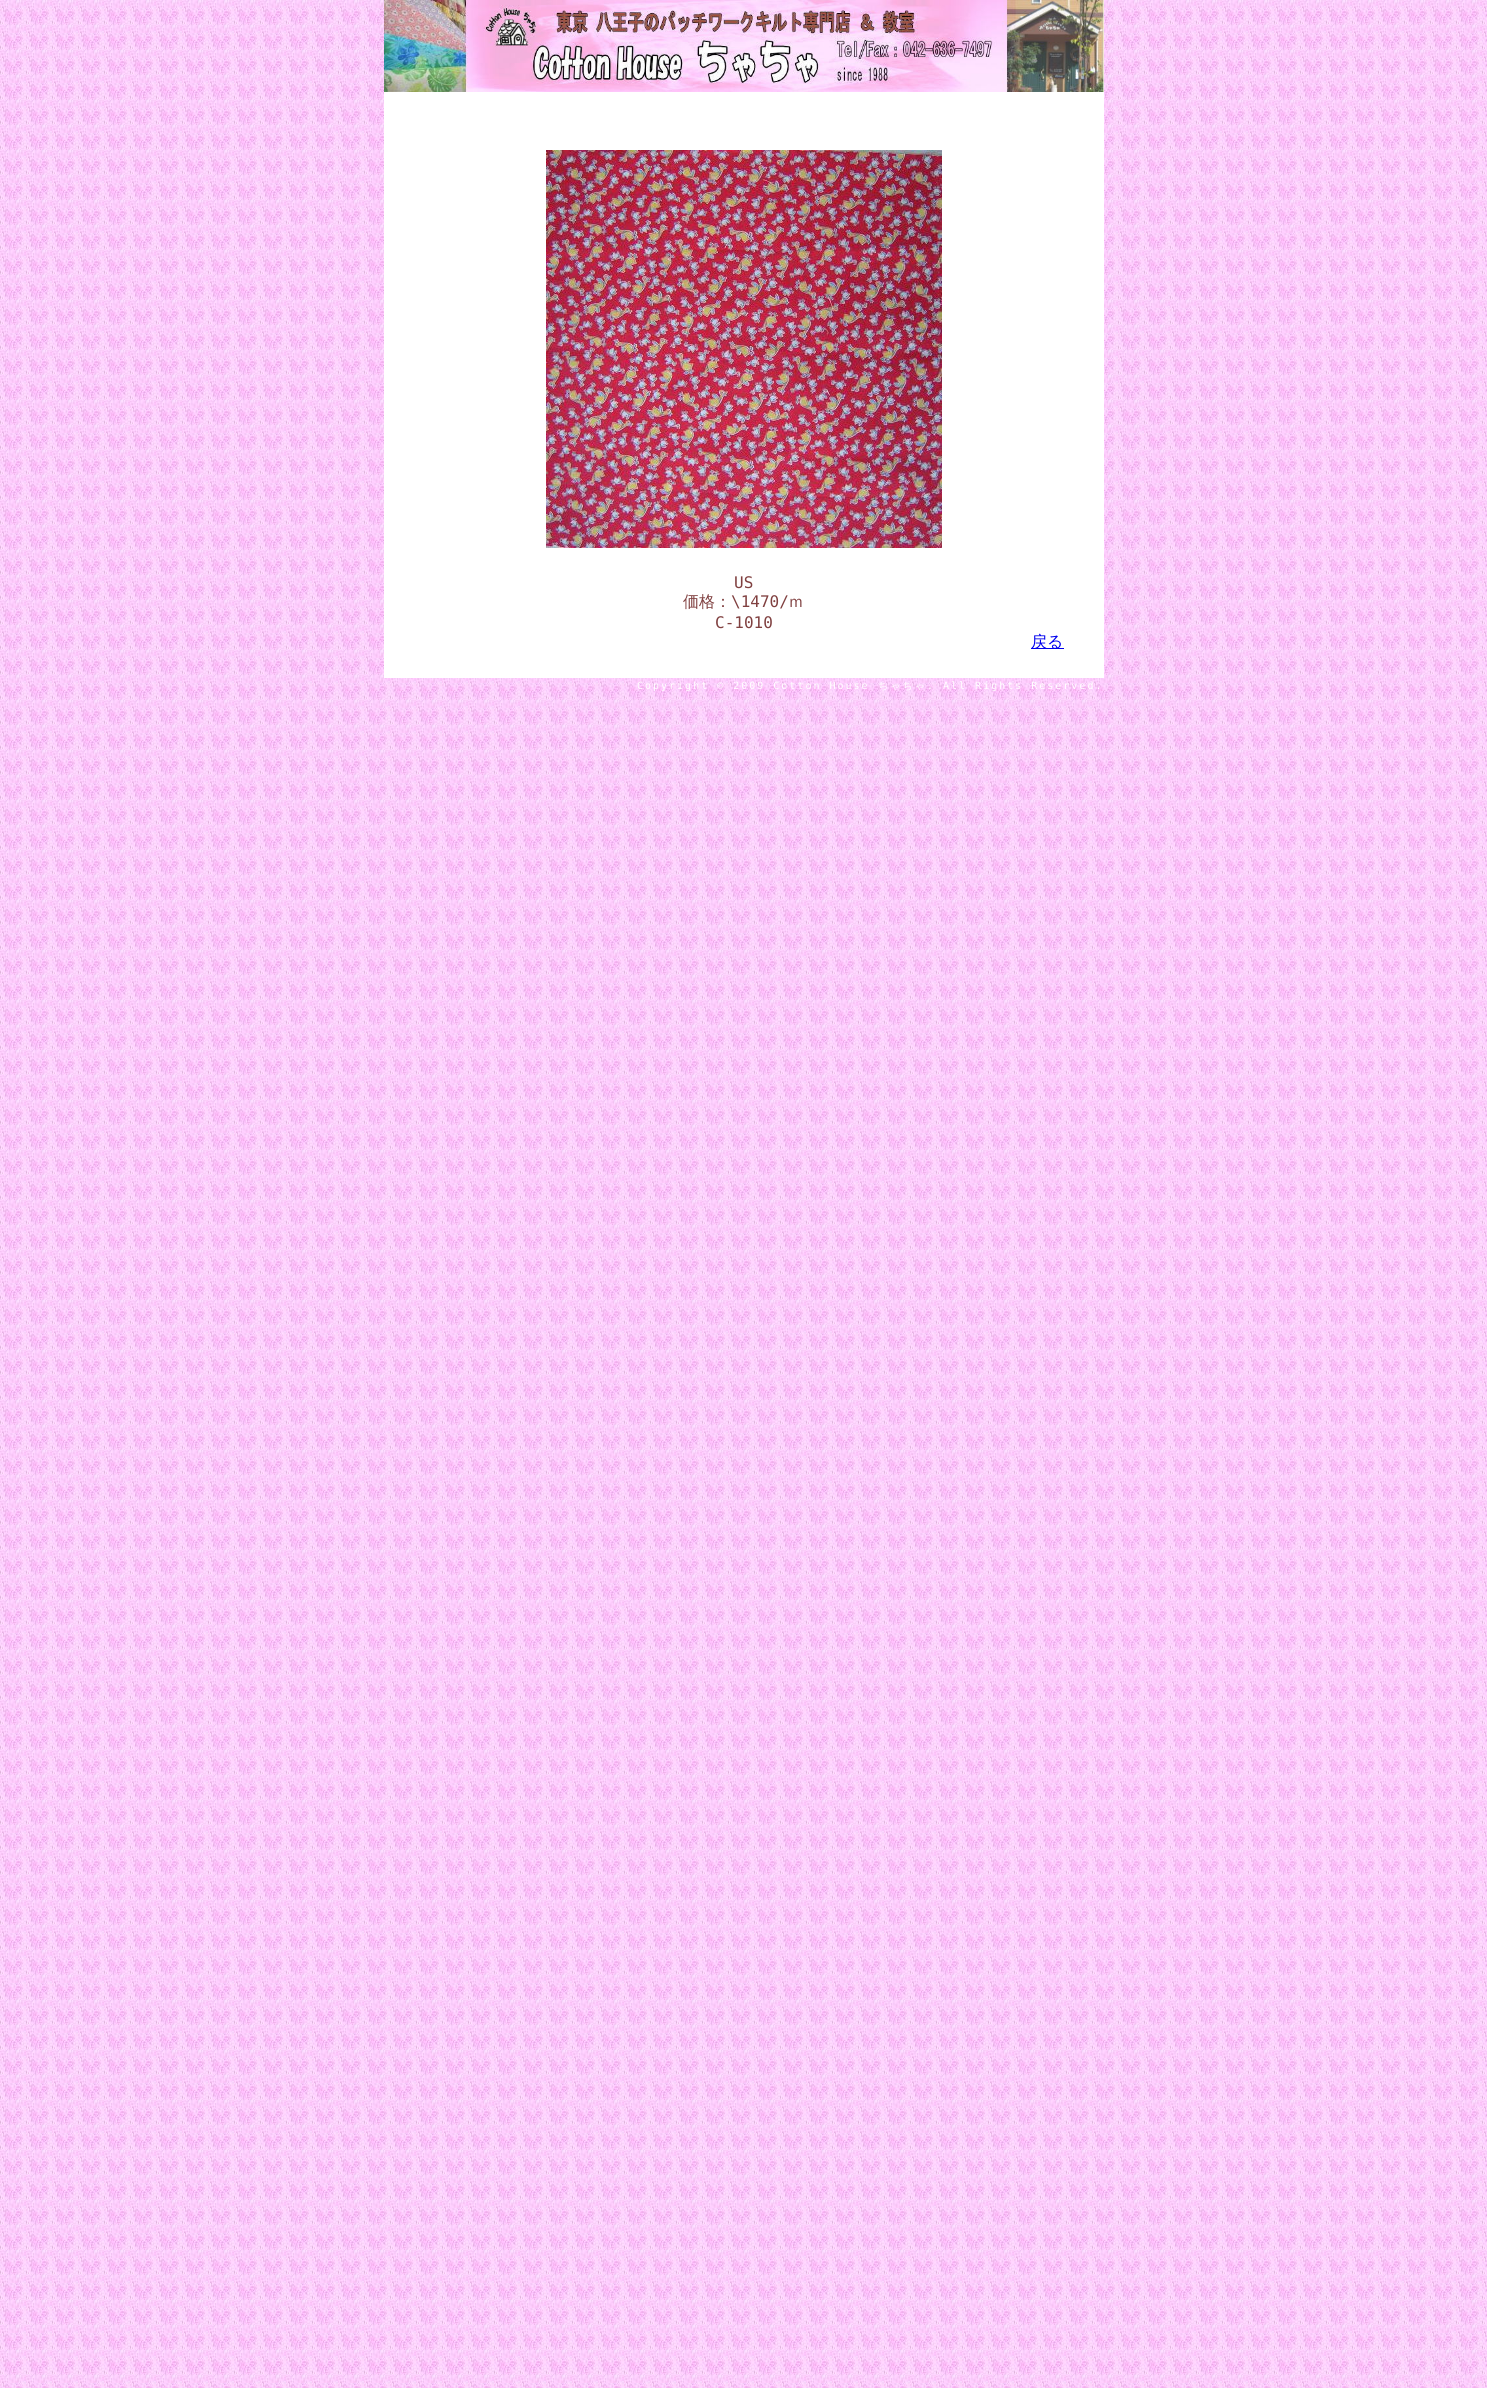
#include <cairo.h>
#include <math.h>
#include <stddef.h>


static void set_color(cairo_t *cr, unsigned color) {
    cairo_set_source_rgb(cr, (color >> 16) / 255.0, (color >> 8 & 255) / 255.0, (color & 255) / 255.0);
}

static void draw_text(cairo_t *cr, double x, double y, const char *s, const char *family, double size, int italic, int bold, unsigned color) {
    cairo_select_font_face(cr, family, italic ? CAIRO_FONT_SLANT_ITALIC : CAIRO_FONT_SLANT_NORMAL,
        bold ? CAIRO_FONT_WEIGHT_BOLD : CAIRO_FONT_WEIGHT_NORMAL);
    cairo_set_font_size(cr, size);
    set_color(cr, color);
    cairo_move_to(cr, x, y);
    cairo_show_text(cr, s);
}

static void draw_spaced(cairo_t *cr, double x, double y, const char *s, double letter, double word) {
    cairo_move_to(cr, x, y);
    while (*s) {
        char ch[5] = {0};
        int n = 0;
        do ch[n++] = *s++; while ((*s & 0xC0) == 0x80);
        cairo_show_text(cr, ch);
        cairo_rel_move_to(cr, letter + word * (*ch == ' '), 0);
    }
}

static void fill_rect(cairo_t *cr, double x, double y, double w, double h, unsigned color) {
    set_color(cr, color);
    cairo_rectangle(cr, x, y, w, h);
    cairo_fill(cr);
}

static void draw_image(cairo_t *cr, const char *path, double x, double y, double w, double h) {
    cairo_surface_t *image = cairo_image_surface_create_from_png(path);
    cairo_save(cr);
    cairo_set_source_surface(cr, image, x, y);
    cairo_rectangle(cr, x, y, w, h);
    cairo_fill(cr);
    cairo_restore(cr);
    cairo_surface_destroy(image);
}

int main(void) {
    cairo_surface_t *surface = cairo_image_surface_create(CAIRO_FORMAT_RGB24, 1487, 2388);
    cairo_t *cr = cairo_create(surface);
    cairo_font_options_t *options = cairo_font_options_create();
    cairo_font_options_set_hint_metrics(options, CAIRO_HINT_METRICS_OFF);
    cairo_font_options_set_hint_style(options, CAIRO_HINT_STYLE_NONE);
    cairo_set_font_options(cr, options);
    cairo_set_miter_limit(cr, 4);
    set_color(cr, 0xFFFFFF);
    cairo_paint(cr);
    draw_image(cr, "assets/img1.png", 0, 0, 1487, 2388);
    draw_image(cr, "assets/img2.png", 384, 0, 720, 92);
    fill_rect(cr, 384, 92, 720, 8, 0xFFFFFF);
    fill_rect(cr, 384, 100, 720, 578, 0xFFFFFF);
    draw_image(cr, "assets/img3.png", 546, 150, 396, 398);
    draw_text(cr, 734, 588, "US", "DejaVu Sans Mono", 16, 0, 0, 0x804040);
    draw_text(cr, 683, 607, "価格：", "WenQuanYi Zen Hei Medium", 16, 0, 0, 0x804040);
    draw_text(cr, 731, 607, "\\1470/", "DejaVu Sans Mono", 16, 0, 0, 0x804040);
    draw_text(cr, 788, 607, "ｍ", "WenQuanYi Zen Hei Medium", 16, 0, 0, 0x804040);
    draw_text(cr, 715, 628, "C-1010", "DejaVu Sans Mono", 16, 0, 0, 0x804040);
    fill_rect(cr, 1031, 648, 33, 1, 0x0000EE);
    draw_text(cr, 1031, 647, "戻る", "WenQuanYi Zen Hei Medium", 16, 0, 0, 0x0000EE);
    cairo_select_font_face(cr, "DejaVu Sans Mono", CAIRO_FONT_SLANT_NORMAL, CAIRO_FONT_WEIGHT_NORMAL);
    cairo_set_font_size(cr, 10);
    set_color(cr, 0xFFFFFF);
    draw_spaced(cr, 637, 689, "Copyright © 2009 Cotton House", 2, 0);
    cairo_select_font_face(cr, "WenQuanYi Zen Hei Medium", CAIRO_FONT_SLANT_NORMAL, CAIRO_FONT_WEIGHT_NORMAL);
    draw_spaced(cr, 878, 689, "ちゃちゃ", 2, 0);
    cairo_select_font_face(cr, "DejaVu Sans Mono", CAIRO_FONT_SLANT_NORMAL, CAIRO_FONT_WEIGHT_NORMAL);
    draw_spaced(cr, 927, 689, ". All Rights Reserved.", 2, 0);
    cairo_surface_write_to_png(surface, "output.png");
    cairo_font_options_destroy(options);
    cairo_destroy(cr);
    cairo_surface_destroy(surface);
    return 0;
}
